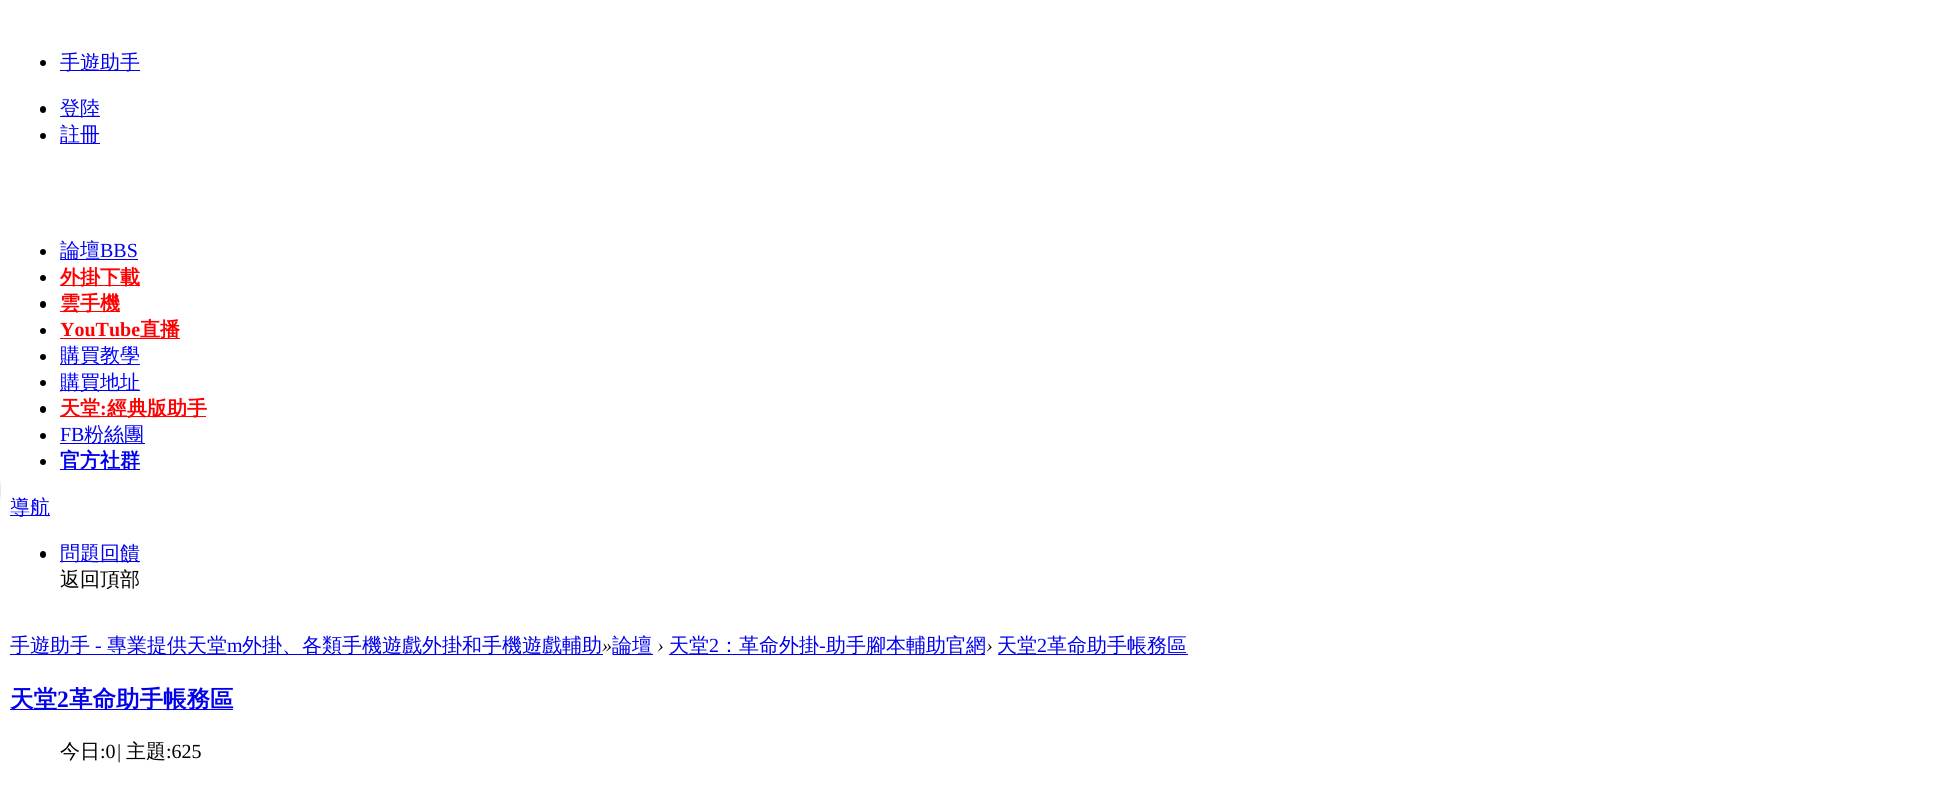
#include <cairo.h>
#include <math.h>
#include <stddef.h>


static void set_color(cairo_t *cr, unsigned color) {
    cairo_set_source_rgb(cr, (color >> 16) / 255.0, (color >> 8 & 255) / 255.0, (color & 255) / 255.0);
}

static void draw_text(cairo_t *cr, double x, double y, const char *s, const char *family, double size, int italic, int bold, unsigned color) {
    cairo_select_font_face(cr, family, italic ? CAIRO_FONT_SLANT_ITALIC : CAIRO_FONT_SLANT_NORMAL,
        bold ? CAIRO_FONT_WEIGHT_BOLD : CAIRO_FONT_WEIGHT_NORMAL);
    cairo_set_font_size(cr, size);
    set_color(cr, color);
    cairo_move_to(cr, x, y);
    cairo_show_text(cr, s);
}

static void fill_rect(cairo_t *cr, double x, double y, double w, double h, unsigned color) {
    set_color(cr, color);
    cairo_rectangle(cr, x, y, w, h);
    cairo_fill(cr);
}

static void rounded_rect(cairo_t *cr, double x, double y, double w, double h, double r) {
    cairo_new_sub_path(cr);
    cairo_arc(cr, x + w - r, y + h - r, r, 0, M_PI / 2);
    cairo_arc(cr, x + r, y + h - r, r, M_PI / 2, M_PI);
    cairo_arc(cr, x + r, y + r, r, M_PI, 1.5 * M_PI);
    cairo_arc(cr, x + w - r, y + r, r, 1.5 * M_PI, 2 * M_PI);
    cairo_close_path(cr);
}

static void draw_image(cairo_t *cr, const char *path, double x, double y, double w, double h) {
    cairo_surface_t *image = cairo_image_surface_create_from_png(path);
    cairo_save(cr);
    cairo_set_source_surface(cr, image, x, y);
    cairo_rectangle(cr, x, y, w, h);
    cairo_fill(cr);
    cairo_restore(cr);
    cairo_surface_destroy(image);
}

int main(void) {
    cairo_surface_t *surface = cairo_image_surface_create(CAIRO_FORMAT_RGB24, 1946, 790);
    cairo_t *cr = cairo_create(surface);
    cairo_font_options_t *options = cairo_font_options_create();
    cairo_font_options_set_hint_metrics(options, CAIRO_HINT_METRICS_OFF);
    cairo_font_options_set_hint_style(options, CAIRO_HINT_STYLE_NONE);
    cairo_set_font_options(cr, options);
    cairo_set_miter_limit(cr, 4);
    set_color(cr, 0xFFFFFF);
    cairo_paint(cr);
    draw_image(cr, "assets/img1.png", 0, 481, 1, 25);
    set_color(cr, 0x000000);
    cairo_arc(cr, 43, 63, 3, 0, 2 * M_PI);
    cairo_fill(cr);
    fill_rect(cr, 60, 70, 80, 1, 0x0000EE);
    draw_text(cr, 60, 69, "手遊助手", "WenQuanYi Zen Hei Medium", 20, 0, 0, 0x0000EE);
    set_color(cr, 0x000000);
    rounded_rect(cr, 40, 106, 6, 7, 3);
    cairo_fill(cr);
    fill_rect(cr, 60, 116, 40, 1, 0x0000EE);
    draw_text(cr, 60, 115, "登陸", "WenQuanYi Zen Hei Medium", 20, 0, 0, 0x0000EE);
    set_color(cr, 0x000000);
    cairo_new_path(cr);
    cairo_arc(cr, 43, 136, 3, 0, 2 * M_PI);
    cairo_fill(cr);
    fill_rect(cr, 60, 143, 40, 1, 0x0000EE);
    draw_text(cr, 60, 141, "註冊", "WenQuanYi Zen Hei Medium", 20, 0, 0, 0x0000EE);
    set_color(cr, 0x000000);
    cairo_new_path(cr);
    cairo_arc(cr, 43, 252, 3, 0, 2 * M_PI);
    cairo_fill(cr);
    fill_rect(cr, 60, 259, 78, 1, 0x0000EE);
    draw_text(cr, 60, 257, "論壇", "WenQuanYi Zen Hei Medium", 20, 0, 0, 0x0000EE);
    draw_text(cr, 100, 257, "BBS", "Liberation Serif", 20, 0, 0, 0x0000EE);
    set_color(cr, 0x000000);
    cairo_new_path(cr);
    cairo_arc(cr, 43, 278, 3, 0, 2 * M_PI);
    cairo_fill(cr);
    fill_rect(cr, 60, 285, 80, 1, 0xFF0000);
    draw_text(cr, 60, 284, "外掛下載", "WenQuanYi Zen Hei", 20, 0, 1, 0xFF0000);
    set_color(cr, 0x000000);
    rounded_rect(cr, 40, 301, 6, 7, 3);
    cairo_fill(cr);
    fill_rect(cr, 60, 311, 60, 1, 0xFF0000);
    draw_text(cr, 60, 310, "雲手機", "WenQuanYi Zen Hei", 20, 0, 1, 0xFF0000);
    set_color(cr, 0x000000);
    cairo_new_path(cr);
    cairo_arc(cr, 43, 331, 3, 0, 2 * M_PI);
    cairo_fill(cr);
    draw_text(cr, 60, 336, "YouTube", "Liberation Serif", 20, 0, 1, 0xFF0000);
    fill_rect(cr, 60, 338, 120, 1, 0xFF0000);
    draw_text(cr, 140, 336, "直播", "WenQuanYi Zen Hei", 20, 0, 1, 0xFF0000);
    set_color(cr, 0x000000);
    cairo_new_path(cr);
    cairo_arc(cr, 43, 357, 3, 0, 2 * M_PI);
    cairo_fill(cr);
    fill_rect(cr, 60, 364, 80, 1, 0x0000FF);
    draw_text(cr, 60, 362, "購買教學", "WenQuanYi Zen Hei Medium", 20, 0, 0, 0x0000FF);
    set_color(cr, 0x000000);
    cairo_new_path(cr);
    cairo_arc(cr, 43, 383, 3, 0, 2 * M_PI);
    cairo_fill(cr);
    fill_rect(cr, 60, 390, 80, 1, 0x0000FF);
    draw_text(cr, 60, 389, "購買地址", "WenQuanYi Zen Hei Medium", 20, 0, 0, 0x0000FF);
    set_color(cr, 0x000000);
    rounded_rect(cr, 40, 406, 6, 7, 3);
    cairo_fill(cr);
    fill_rect(cr, 60, 416, 146, 1, 0xFF0000);
    draw_text(cr, 60, 415, "天堂", "WenQuanYi Zen Hei", 20, 0, 1, 0xFF0000);
    draw_text(cr, 100, 415, ":", "Liberation Serif", 20, 0, 1, 0xFF0000);
    draw_text(cr, 107, 415, "經典版助手", "WenQuanYi Zen Hei", 20, 0, 1, 0xFF0000);
    set_color(cr, 0x000000);
    cairo_new_path(cr);
    cairo_arc(cr, 43, 436, 3, 0, 2 * M_PI);
    cairo_fill(cr);
    draw_text(cr, 60, 441, "FB", "Liberation Serif", 20, 0, 0, 0x0000EE);
    fill_rect(cr, 60, 443, 85, 1, 0x0000EE);
    draw_text(cr, 84, 441, "粉絲團", "WenQuanYi Zen Hei Medium", 20, 0, 0, 0x0000EE);
    set_color(cr, 0x000000);
    cairo_new_path(cr);
    cairo_arc(cr, 43, 462, 3, 0, 2 * M_PI);
    cairo_fill(cr);
    fill_rect(cr, 60, 469, 80, 1, 0x0000EE);
    draw_text(cr, 60, 467, "官方社群", "WenQuanYi Zen Hei", 20, 0, 1, 0x0000EE);
    fill_rect(cr, 10, 515, 40, 1, 0x0000EE);
    draw_text(cr, 10, 514, "導航", "WenQuanYi Zen Hei Medium", 20, 0, 0, 0x0000EE);
    set_color(cr, 0x000000);
    rounded_rect(cr, 40, 551, 6, 7, 3);
    cairo_fill(cr);
    fill_rect(cr, 60, 561, 80, 1, 0x0000EE);
    draw_text(cr, 60, 560, "問題回饋", "WenQuanYi Zen Hei Medium", 20, 0, 0, 0x0000EE);
    draw_text(cr, 60, 586, "返回頂部", "WenQuanYi Zen Hei Medium", 20, 0, 0, 0x000000);
    fill_rect(cr, 10, 654, 593, 1, 0x0000EE);
    draw_text(cr, 10, 652, "手遊助手", "WenQuanYi Zen Hei Medium", 20, 0, 0, 0x0000EE);
    draw_text(cr, 95, 652, "-", "Liberation Serif", 20, 0, 0, 0x0000EE);
    draw_text(cr, 107, 652, "專業提供天堂", "WenQuanYi Zen Hei Medium", 20, 0, 0, 0x0000EE);
    draw_text(cr, 227, 652, "m", "Liberation Serif", 20, 0, 0, 0x0000EE);
    draw_text(cr, 242, 652, "外掛、各類手機遊戲外掛和手機遊戲輔助", "WenQuanYi Zen Hei Medium", 20, 0, 0, 0x0000EE);
    draw_text(cr, 602, 652, "»", "Liberation Serif", 20, 1, 0, 0x000000);
    fill_rect(cr, 613, 654, 40, 1, 0x0000EE);
    draw_text(cr, 612, 652, "論壇", "WenQuanYi Zen Hei Medium", 20, 0, 0, 0x0000EE);
    draw_text(cr, 657, 652, "›", "Liberation Serif", 20, 1, 0, 0x000000);
    fill_rect(cr, 669, 654, 316, 1, 0x0000EE);
    draw_text(cr, 669, 652, "天堂", "WenQuanYi Zen Hei Medium", 20, 0, 0, 0x0000EE);
    draw_text(cr, 709, 652, "2", "Liberation Serif", 20, 0, 0, 0x0000EE);
    draw_text(cr, 719, 652, "：革命外掛", "WenQuanYi Zen Hei Medium", 20, 0, 0, 0x0000EE);
    draw_text(cr, 819, 652, "-", "Liberation Serif", 20, 0, 0, 0x0000EE);
    draw_text(cr, 826, 652, "助手腳本輔助官網", "WenQuanYi Zen Hei Medium", 20, 0, 0, 0x0000EE);
    draw_text(cr, 986, 652, "›", "Liberation Serif", 20, 1, 0, 0x000000);
    fill_rect(cr, 998, 654, 190, 1, 0x0000EE);
    draw_text(cr, 997, 652, "天堂", "WenQuanYi Zen Hei Medium", 20, 0, 0, 0x0000EE);
    draw_text(cr, 1037, 652, "2", "Liberation Serif", 20, 0, 0, 0x0000EE);
    draw_text(cr, 1047, 652, "革命助手帳務區", "WenQuanYi Zen Hei Medium", 20, 0, 0, 0x0000EE);
    fill_rect(cr, 10, 709, 223, 1, 0x0000EE);
    draw_text(cr, 10, 707, "天堂", "WenQuanYi Zen Hei", 23.5, 0, 1, 0x0000EE);
    draw_text(cr, 57, 707, "2", "Liberation Serif", 23.5, 0, 1, 0x0000EE);
    draw_text(cr, 69, 707, "革命助手帳務區", "WenQuanYi Zen Hei", 23.5, 0, 1, 0x0000EE);
    draw_text(cr, 60, 758, "今日", "WenQuanYi Zen Hei Medium", 20, 0, 0, 0x000000);
    draw_text(cr, 100, 758, ":0", "Liberation Serif", 20, 0, 0, 0x000000);
    draw_text(cr, 116, 758, "|", "Liberation Serif", 20, 1, 0, 0x000000);
    draw_text(cr, 126, 758, "主題", "WenQuanYi Zen Hei Medium", 20, 0, 0, 0x000000);
    draw_text(cr, 166, 758, ":625", "Liberation Serif", 20, 0, 0, 0x000000);
    cairo_surface_write_to_png(surface, "output.png");
    cairo_font_options_destroy(options);
    cairo_destroy(cr);
    cairo_surface_destroy(surface);
    return 0;
}
